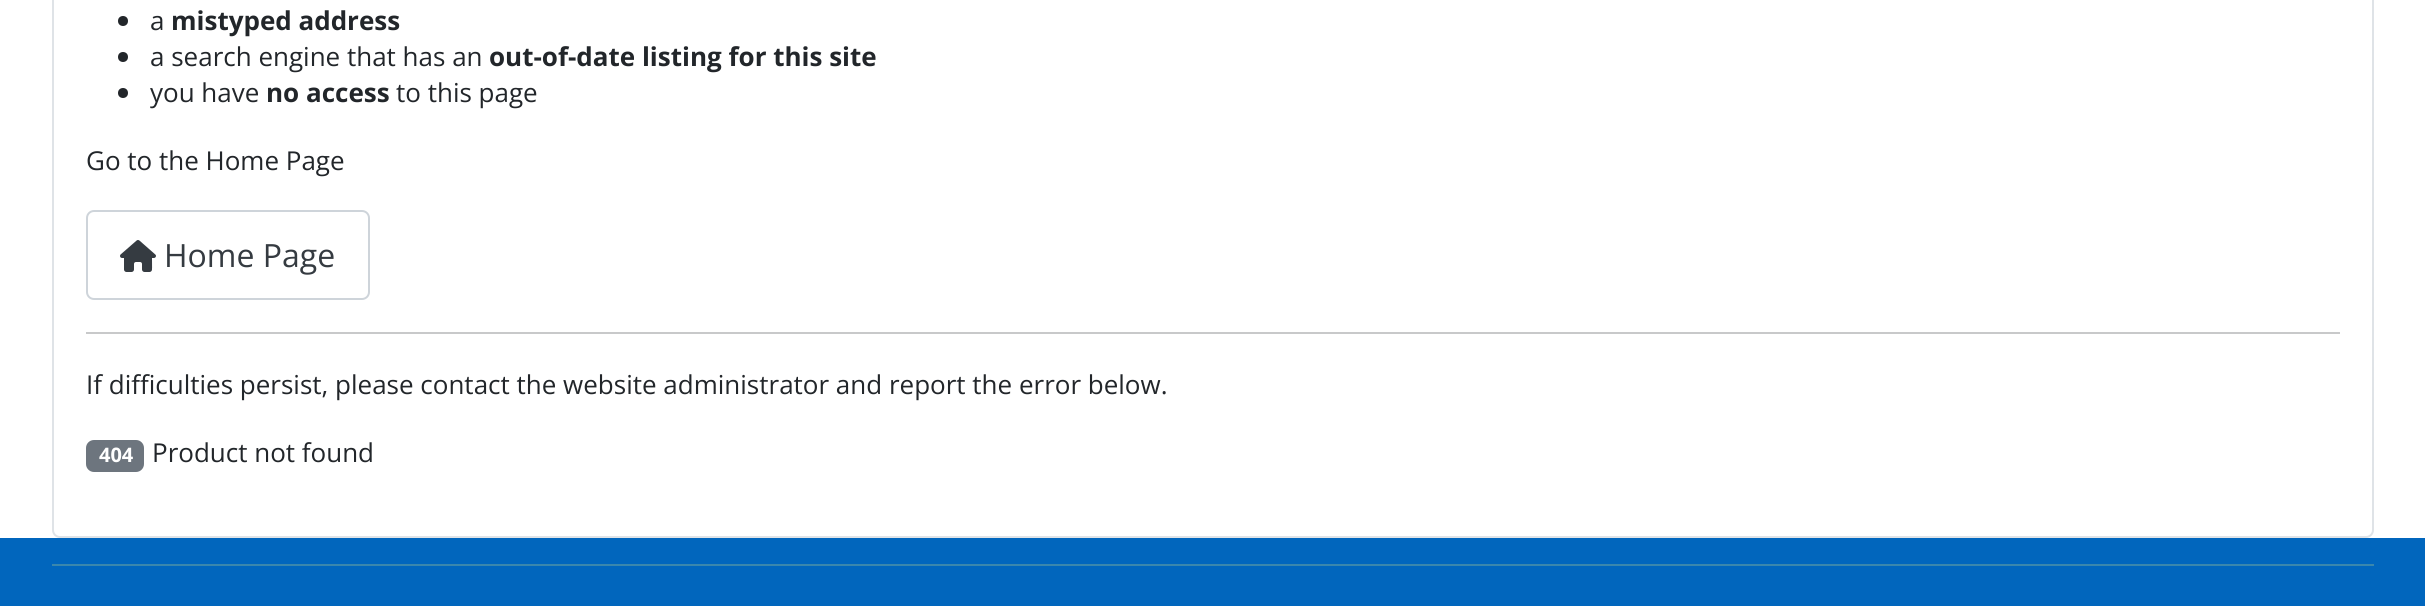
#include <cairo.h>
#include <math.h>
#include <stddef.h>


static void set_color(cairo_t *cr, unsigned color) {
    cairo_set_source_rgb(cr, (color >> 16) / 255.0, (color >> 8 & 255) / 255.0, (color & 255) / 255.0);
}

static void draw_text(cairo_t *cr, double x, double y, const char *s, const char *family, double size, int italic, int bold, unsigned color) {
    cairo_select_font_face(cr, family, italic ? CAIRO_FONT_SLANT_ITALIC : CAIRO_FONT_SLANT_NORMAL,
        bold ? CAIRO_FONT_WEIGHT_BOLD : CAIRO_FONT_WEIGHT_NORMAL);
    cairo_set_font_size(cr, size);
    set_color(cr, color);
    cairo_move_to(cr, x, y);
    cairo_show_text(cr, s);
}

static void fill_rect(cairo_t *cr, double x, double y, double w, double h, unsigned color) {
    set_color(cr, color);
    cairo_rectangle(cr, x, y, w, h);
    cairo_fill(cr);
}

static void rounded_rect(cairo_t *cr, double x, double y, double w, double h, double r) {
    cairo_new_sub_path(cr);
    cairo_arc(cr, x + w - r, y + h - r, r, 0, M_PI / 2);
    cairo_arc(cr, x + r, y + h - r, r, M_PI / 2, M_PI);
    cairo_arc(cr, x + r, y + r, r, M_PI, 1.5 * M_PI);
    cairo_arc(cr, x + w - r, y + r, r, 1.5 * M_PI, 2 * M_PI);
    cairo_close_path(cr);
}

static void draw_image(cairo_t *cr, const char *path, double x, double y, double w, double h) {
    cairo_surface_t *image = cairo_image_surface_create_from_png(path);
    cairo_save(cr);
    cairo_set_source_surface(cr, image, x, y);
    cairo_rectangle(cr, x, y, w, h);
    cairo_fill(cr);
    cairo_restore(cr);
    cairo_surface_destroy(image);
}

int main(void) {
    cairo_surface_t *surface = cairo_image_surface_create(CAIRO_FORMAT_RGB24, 2425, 606);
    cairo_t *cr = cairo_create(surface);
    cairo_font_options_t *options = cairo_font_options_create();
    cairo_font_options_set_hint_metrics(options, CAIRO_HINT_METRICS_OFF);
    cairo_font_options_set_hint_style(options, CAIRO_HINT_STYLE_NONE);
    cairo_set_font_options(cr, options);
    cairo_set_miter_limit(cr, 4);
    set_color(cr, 0xFFFFFF);
    cairo_paint(cr);
    rounded_rect(cr, 53, -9, 2320, 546, 7);
    set_color(cr, 0xDFE3E7);
    cairo_stroke(cr);
    set_color(cr, 0x22262A);
    cairo_arc(cr, 123, 21, 5, 0, 2 * M_PI);
    cairo_fill(cr);
    draw_text(cr, 150, 30, "a", "Open Sans", 26, 0, 0, 0x22262A);
    draw_text(cr, 171, 30, "mistyped address", "Open Sans", 26, 0, 1, 0x22262A);
    cairo_new_path(cr);
    cairo_arc(cr, 123, 57, 5, 0, 2 * M_PI);
    cairo_fill(cr);
    draw_text(cr, 150, 66, "a search engine that has an", "Open Sans", 26, 0, 0, 0x22262A);
    draw_text(cr, 489, 66, "out-of-date listing for this site", "Open Sans", 26, 0, 1, 0x22262A);
    cairo_new_path(cr);
    cairo_arc(cr, 123, 93, 5, 0, 2 * M_PI);
    cairo_fill(cr);
    draw_text(cr, 150, 102, "you have", "Open Sans", 26, 0, 0, 0x22262A);
    draw_text(cr, 266, 102, "no access", "Open Sans", 26, 0, 1, 0x22262A);
    draw_text(cr, 396, 102, "to this page", "Open Sans", 26, 0, 0, 0x22262A);
    draw_text(cr, 86, 170, "Go to the Home Page", "Open Sans", 26, 0, 0, 0x22262A);
    rounded_rect(cr, 87, 211, 282, 88, 7);
    set_color(cr, 0xCED4DA);
    cairo_stroke(cr);
    draw_image(cr, "assets/img1.png", 120, 240, 36, 32);
    draw_text(cr, 164, 267, "Home Page", "Open Sans", 32, 0, 0, 0x353B41);
    fill_rect(cr, 86, 332, 2254, 2, 0xC8C9CA);
    draw_text(cr, 86, 394, "If difficulties persist, please contact the website administrator and report the error below.", "Open Sans", 26, 0, 0, 0x22262A);
    set_color(cr, 0x6D757E);
    rounded_rect(cr, 86, 440, 58, 32, 8);
    cairo_fill(cr);
    draw_text(cr, 99, 462, "404", "Open Sans", 20, 0, 1, 0xFFFFFF);
    draw_text(cr, 152, 462, "Product not found", "Open Sans", 26, 0, 0, 0x22262A);
    fill_rect(cr, 0, 538, 2425, 68, 0x0166BD);
    fill_rect(cr, 52, 564, 2322, 2, 0x3A87AD);
    cairo_surface_write_to_png(surface, "output.png");
    cairo_font_options_destroy(options);
    cairo_destroy(cr);
    cairo_surface_destroy(surface);
    return 0;
}
